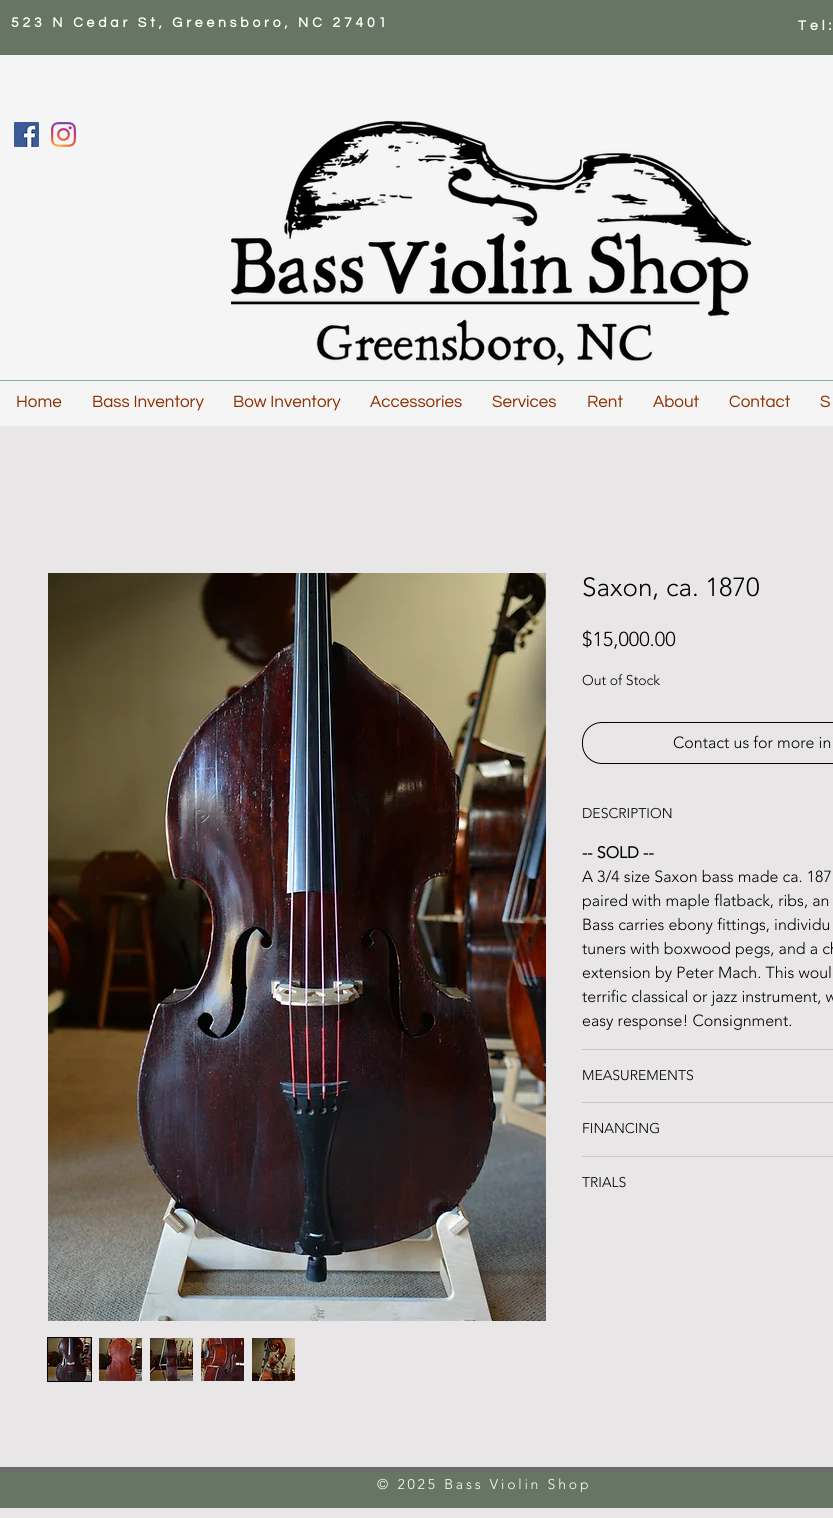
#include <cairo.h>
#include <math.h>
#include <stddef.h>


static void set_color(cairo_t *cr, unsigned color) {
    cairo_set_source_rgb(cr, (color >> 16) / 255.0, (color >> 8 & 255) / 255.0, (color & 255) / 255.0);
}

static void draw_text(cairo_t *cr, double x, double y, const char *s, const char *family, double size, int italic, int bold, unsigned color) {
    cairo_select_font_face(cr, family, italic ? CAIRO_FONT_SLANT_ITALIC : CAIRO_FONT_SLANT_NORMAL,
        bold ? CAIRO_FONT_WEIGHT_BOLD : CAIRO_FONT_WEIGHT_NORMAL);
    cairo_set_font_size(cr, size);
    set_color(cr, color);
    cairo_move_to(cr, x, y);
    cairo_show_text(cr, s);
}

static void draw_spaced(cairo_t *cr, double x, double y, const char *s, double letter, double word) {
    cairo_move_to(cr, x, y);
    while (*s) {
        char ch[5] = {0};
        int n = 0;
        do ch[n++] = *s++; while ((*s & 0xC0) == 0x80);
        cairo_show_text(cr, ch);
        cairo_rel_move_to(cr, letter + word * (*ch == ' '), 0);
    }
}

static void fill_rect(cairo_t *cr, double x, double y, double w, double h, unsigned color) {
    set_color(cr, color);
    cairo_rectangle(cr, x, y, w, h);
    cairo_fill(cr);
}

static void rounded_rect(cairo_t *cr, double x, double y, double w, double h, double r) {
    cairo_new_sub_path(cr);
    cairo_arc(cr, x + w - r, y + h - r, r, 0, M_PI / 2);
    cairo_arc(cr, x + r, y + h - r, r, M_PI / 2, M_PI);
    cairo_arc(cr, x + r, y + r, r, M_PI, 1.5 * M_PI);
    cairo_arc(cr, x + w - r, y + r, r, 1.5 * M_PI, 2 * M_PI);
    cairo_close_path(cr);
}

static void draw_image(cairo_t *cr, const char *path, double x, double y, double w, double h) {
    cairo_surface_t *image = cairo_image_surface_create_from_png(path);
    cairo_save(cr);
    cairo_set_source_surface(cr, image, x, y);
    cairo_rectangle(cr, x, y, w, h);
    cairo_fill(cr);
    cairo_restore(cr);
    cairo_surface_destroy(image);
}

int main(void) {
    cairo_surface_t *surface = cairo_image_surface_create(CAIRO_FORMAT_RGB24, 833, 1518);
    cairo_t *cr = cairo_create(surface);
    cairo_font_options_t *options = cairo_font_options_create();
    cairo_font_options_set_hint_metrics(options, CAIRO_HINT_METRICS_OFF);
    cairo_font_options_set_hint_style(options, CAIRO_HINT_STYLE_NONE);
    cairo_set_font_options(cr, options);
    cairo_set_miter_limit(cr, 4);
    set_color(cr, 0xE8E6E6);
    cairo_paint(cr);
    fill_rect(cr, 0, 0, 833, 55, 0x677662);
    cairo_select_font_face(cr, "Questrial", CAIRO_FONT_SLANT_NORMAL, CAIRO_FONT_WEIGHT_BOLD);
    cairo_set_font_size(cr, 14);
    set_color(cr, 0xFFFFFF);
    draw_spaced(cr, 11, 27, "523 N Cedar St, Greensboro, NC 27401", 3.8, 0);
    draw_spaced(cr, 798, 30, "Tel:", 4, 0);
    fill_rect(cr, 0, 55, 833, 371, 0xF6F5F5);
    draw_image(cr, "assets/img1.png", 14, 122, 25, 25);
    draw_image(cr, "assets/img2.png", 51, 122, 25, 25);
    draw_image(cr, "assets/img3.png", 231, 121, 520, 245);
    fill_rect(cr, 0, 380, 833, 1, 0x8DACA4);
    draw_text(cr, 16, 407, "Home", "Questrial", 17, 0, 0, 0x8B2F00);
    draw_text(cr, 92, 407, "Bass Inventory", "Questrial", 17, 0, 0, 0x8B2F00);
    draw_text(cr, 233, 407, "Bow Inventory", "Questrial", 17, 0, 0, 0x8B2F00);
    draw_text(cr, 370, 407, "Accessories", "Questrial", 17, 0, 0, 0x8B2F00);
    draw_text(cr, 492, 407, "Services", "Questrial", 17, 0, 0, 0x8B2F00);
    draw_text(cr, 587, 407, "Rent", "Questrial", 17, 0, 0, 0x8B2F00);
    draw_text(cr, 653, 407, "About", "Questrial", 17, 0, 0, 0x8B2F00);
    draw_text(cr, 729, 407, "Contact", "Questrial", 17, 0, 0, 0x8B2F00);
    draw_text(cr, 820, 407, "S", "Questrial", 17, 0, 0, 0x8B2F00);
    draw_image(cr, "assets/img4.png", 48, 573, 498, 748);
    cairo_rectangle(cr, 47.5, 1337.5, 44, 44);
    set_color(cr, 0x000000);
    cairo_set_line_width(cr, 1);
    cairo_stroke(cr);
    draw_image(cr, "assets/img5.png", 48, 1338, 43, 43);
    draw_image(cr, "assets/img6.png", 99, 1338, 43, 43);
    draw_image(cr, "assets/img7.png", 150, 1338, 43, 43);
    draw_image(cr, "assets/img8.png", 201, 1338, 43, 43);
    draw_image(cr, "assets/img9.png", 252, 1338, 43, 43);
    draw_text(cr, 582, 596, "Saxon, ca. 1870", "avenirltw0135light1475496 Light", 26, 0, 0, 0x000000);
    draw_text(cr, 582, 646, "$15,000.00", "avenirltw0135light1475496 Light", 20, 0, 0, 0x000000);
    draw_text(cr, 582, 685, "Out of Stock", "avenirltw0135light1475496 Light", 14, 0, 0, 0x000000);
    rounded_rect(cr, 582.5, 722.5, 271, 41, 19.5);
    cairo_stroke(cr);
    draw_text(cr, 673, 748, "Contact us for more in", "avenirltw0135light1475496 Light", 16, 0, 0, 0x000000);
    fill_rect(cr, 582, 1049, 251, 1, 0xC7C7C7);
    draw_text(cr, 582, 818, "DESCRIPTION", "avenirltw0135light1475496 Light", 14, 0, 0, 0x000000);
    draw_text(cr, 582, 858, "-- SOLD --", "avenirltw0135light1475496", 16, 0, 1, 0x000000);
    draw_text(cr, 582, 882, "A 3/4 size Saxon bass made ca. 187", "avenirltw0135light1475496 Light", 16, 0, 0, 0x000000);
    draw_text(cr, 582, 906, "paired with maple flatback, ribs, an", "avenirltw0135light1475496 Light", 16, 0, 0, 0x000000);
    draw_text(cr, 582, 930, "Bass carries ebony fittings, individu", "avenirltw0135light1475496 Light", 16, 0, 0, 0x000000);
    draw_text(cr, 582, 954, "tuners with boxwood pegs, and a ch", "avenirltw0135light1475496 Light", 16, 0, 0, 0x000000);
    draw_text(cr, 582, 978, "extension by Peter Mach. This woul", "avenirltw0135light1475496 Light", 16, 0, 0, 0x000000);
    draw_text(cr, 582, 1002, "terrific classical or jazz instrument, w", "avenirltw0135light1475496 Light", 16, 0, 0, 0x000000);
    draw_text(cr, 582, 1026, "easy response! Consignment.", "avenirltw0135light1475496 Light", 16, 0, 0, 0x000000);
    fill_rect(cr, 582, 1102, 251, 1, 0xC7C7C7);
    draw_text(cr, 582, 1080, "MEASUREMENTS", "avenirltw0135light1475496 Light", 14, 0, 0, 0x000000);
    fill_rect(cr, 582, 1156, 251, 1, 0xC7C7C7);
    draw_text(cr, 582, 1133, "FINANCING", "avenirltw0135light1475496 Light", 14, 0, 0, 0x000000);
    draw_text(cr, 582, 1187, "TRIALS", "avenirltw0135light1475496 Light", 14, 0, 0, 0x000000);
    fill_rect(cr, 0, 1472, 833, 36, 0x677662);
    fill_rect(cr, 0, 1467, 833, 5, 0x6B6B6B);
    set_color(cr, 0xFFFFFF);
    draw_spaced(cr, 377, 1489, "© 2025 Bass Violin Shop", 2.8, 0);
    cairo_surface_write_to_png(surface, "output.png");
    cairo_font_options_destroy(options);
    cairo_destroy(cr);
    cairo_surface_destroy(surface);
    return 0;
}
